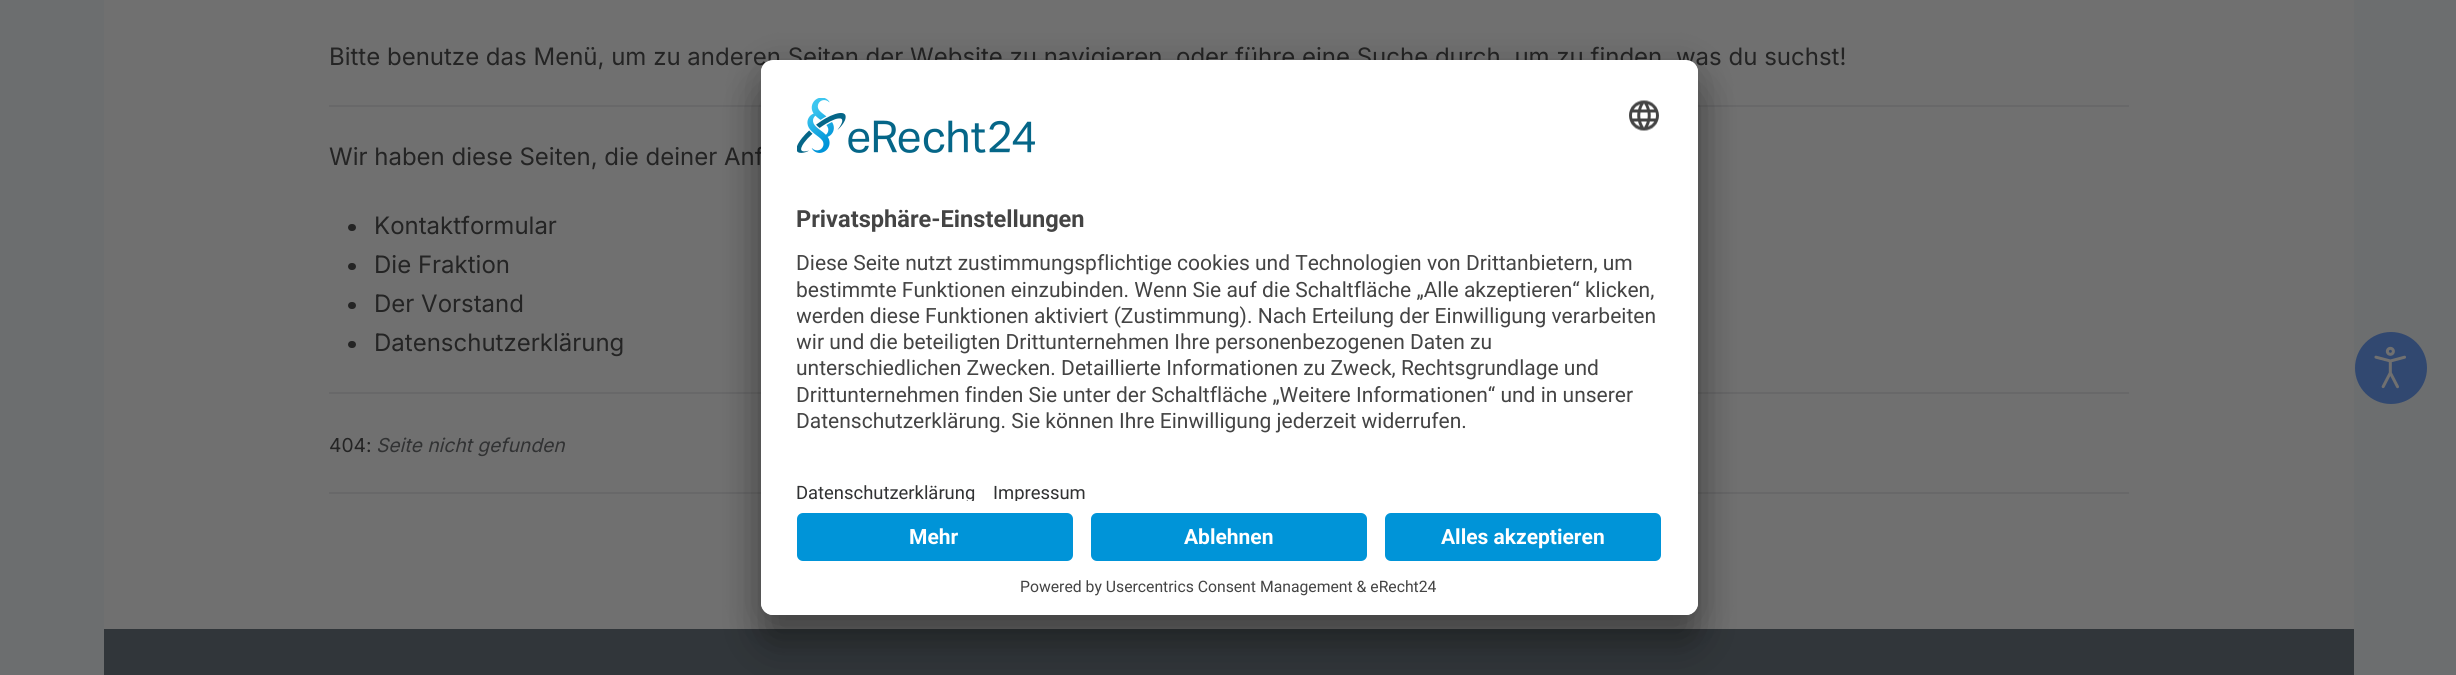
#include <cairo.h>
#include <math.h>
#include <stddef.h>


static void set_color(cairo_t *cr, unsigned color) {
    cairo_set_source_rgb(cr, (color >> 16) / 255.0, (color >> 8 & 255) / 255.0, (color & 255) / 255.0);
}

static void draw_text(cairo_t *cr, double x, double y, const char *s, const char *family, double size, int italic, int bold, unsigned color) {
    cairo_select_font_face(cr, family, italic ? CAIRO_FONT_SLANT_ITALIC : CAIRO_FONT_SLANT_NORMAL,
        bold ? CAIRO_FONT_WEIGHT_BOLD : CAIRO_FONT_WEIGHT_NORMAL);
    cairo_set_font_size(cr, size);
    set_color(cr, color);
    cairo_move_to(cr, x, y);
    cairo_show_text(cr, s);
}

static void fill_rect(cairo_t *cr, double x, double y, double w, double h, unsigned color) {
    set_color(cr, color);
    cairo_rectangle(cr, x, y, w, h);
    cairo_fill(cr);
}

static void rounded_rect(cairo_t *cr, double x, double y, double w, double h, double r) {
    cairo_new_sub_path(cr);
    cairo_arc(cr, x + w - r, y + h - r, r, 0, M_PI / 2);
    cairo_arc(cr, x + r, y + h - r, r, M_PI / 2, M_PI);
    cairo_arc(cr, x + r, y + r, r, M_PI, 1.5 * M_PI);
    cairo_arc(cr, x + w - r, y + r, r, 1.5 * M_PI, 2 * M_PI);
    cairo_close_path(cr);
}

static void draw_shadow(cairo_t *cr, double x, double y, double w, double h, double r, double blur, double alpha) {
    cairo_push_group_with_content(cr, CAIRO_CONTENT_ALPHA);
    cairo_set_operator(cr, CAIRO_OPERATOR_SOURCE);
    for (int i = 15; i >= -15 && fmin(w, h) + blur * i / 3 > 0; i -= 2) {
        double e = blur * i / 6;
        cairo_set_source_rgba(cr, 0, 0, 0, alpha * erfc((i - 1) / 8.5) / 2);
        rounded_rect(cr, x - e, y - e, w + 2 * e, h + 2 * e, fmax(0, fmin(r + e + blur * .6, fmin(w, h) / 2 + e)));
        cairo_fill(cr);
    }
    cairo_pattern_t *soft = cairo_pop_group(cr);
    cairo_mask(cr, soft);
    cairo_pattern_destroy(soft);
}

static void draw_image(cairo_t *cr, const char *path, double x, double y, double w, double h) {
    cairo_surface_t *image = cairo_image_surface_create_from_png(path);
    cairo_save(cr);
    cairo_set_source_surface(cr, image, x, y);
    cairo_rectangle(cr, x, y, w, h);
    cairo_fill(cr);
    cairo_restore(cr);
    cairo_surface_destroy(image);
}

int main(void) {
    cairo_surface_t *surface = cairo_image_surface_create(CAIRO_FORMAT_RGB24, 2456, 675);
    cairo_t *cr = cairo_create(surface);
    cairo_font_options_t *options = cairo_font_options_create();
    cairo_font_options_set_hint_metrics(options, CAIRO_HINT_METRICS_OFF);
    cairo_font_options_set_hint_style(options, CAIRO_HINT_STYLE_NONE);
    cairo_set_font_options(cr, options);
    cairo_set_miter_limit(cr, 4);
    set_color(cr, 0x6C6E6F);
    cairo_paint(cr);
    fill_rect(cr, 104, 0, 2250, 629, 0x707070);
    draw_text(cr, 329, 65, "Bitte benutze das Menü, um zu anderen Seiten der Website zu navigieren, oder führe eine Suche durch, um zu finden, was du suchst!", "Inter", 24, 0, 0, 0x242424);
    fill_rect(cr, 329, 105, 1800, 2, 0x686869);
    draw_text(cr, 329, 165, "Wir haben diese Seiten, die deiner Anf", "Inter", 24, 0, 0, 0x242424);
    rounded_rect(cr, 348, 224, 8, 7, 3.5);
    cairo_fill(cr);
    draw_text(cr, 374, 234, "Kontaktformular", "Inter", 24, 0, 0, 0x242424);
    rounded_rect(cr, 348, 263, 8, 7, 3.5);
    cairo_fill(cr);
    draw_text(cr, 374, 273, "Die Fraktion", "Inter", 24, 0, 0, 0x242424);
    rounded_rect(cr, 348, 302, 8, 7, 3.5);
    cairo_fill(cr);
    draw_text(cr, 374, 312, "Der Vorstand", "Inter", 24, 0, 0, 0x242424);
    rounded_rect(cr, 348, 341, 8, 7, 3.5);
    cairo_fill(cr);
    draw_text(cr, 374, 351, "Datenschutzerklärung", "Inter", 24, 0, 0, 0x242424);
    fill_rect(cr, 329, 392, 1800, 2, 0x686869);
    draw_text(cr, 329, 452, "404:", "Inter", 19.25, 0, 0, 0x242424);
    draw_text(cr, 376, 452, "Seite nicht gefunden", "Inter", 19.25, 1, 0, 0x313233);
    fill_rect(cr, 329, 492, 1800, 2, 0x686869);
    fill_rect(cr, 104, 629, 2250, 46, 0x31363A);
    set_color(cr, 0x000000);
    draw_shadow(cr, 761, 90, 937, 555, 12, 21, 0.3);
    draw_shadow(cr, 761, 68, 937, 555, 12, 19.5, 0.22);
    set_color(cr, 0xFFFFFF);
    rounded_rect(cr, 761, 60, 937, 555, 12);
    cairo_fill(cr);
    cairo_save(cr);
    rounded_rect(cr, 761, 60, 937, 555, 12);
    cairo_clip(cr);
    cairo_new_path(cr);
    cairo_move_to(cr, 773, 60);
    cairo_line_to(cr, 1686, 60);
    cairo_curve_to(cr, 1692.5, 60, 1698, 65.5, 1698, 72);
    cairo_line_to(cr, 1698, 501);
    cairo_line_to(cr, 761, 501);
    cairo_line_to(cr, 761, 72);
    cairo_curve_to(cr, 761, 65.5, 766.5, 60, 773, 60);
    cairo_close_path(cr);
    cairo_clip(cr);
    fill_rect(cr, 761, 62, 937, 439, 0xFFFFFF);
    cairo_restore(cr);
    draw_image(cr, "assets/img1.png", 797, 98, 238, 55);
    draw_image(cr, "assets/img2.png", 1629, 100, 30, 31);
    draw_text(cr, 796, 227, "Privatsphäre-Einstellungen", "Roboto", 23.6, 0, 1, 0x444444);
    draw_text(cr, 796, 270, "Diese Seite nutzt zustimmungspflichtige cookies und Technologien von Drittanbietern, um", "Roboto", 21, 0, 0, 0x444444);
    draw_text(cr, 796, 297, "bestimmte Funktionen einzubinden. Wenn Sie auf die Schaltfläche „Alle akzeptieren“ klicken,", "Roboto", 21, 0, 0, 0x444444);
    cairo_save(cr);
    cairo_rectangle(cr, 797, 245, 865, 196);
    cairo_clip(cr);
    draw_text(cr, 796, 323, "werden diese Funktionen aktiviert (Zustimmung). Nach Erteilung der Einwilligung verarbeiten", "Roboto", 21, 0, 0, 0x444444);
    draw_text(cr, 796, 349, "wir und die beteiligten Drittunternehmen Ihre personenbezogenen Daten zu", "Roboto", 21, 0, 0, 0x444444);
    cairo_restore(cr);
    draw_text(cr, 796, 375, "unterschiedlichen Zwecken. Detaillierte Informationen zu Zweck, Rechtsgrundlage und", "Roboto", 21, 0, 0, 0x444444);
    draw_text(cr, 796, 402, "Drittunternehmen finden Sie unter der Schaltfläche „Weitere Informationen“ und in unserer", "Roboto", 21, 0, 0, 0x444444);
    draw_text(cr, 796, 428, "Datenschutzerklärung. Sie können Ihre Einwilligung jederzeit widerrufen.", "Roboto", 21, 0, 0, 0x444444);
    cairo_save(cr);
    cairo_new_path(cr);
    cairo_move_to(cr, 773, 60);
    cairo_line_to(cr, 1686, 60);
    cairo_curve_to(cr, 1692.5, 60, 1698, 65.5, 1698, 72);
    cairo_line_to(cr, 1698, 501);
    cairo_line_to(cr, 761, 501);
    cairo_line_to(cr, 761, 72);
    cairo_curve_to(cr, 761, 65.5, 766.5, 60, 773, 60);
    cairo_close_path(cr);
    cairo_clip(cr);
    draw_text(cr, 796, 499, "Datenschutzerklärung", "Roboto", 18.4, 0, 0, 0x313233);
    draw_text(cr, 993, 499, "Impressum", "Roboto", 18.4, 0, 0, 0x313233);
    cairo_restore(cr);
    set_color(cr, 0xFFFFFF);
    cairo_new_path(cr);
    cairo_move_to(cr, 761, 501);
    cairo_line_to(cr, 1698, 501);
    cairo_line_to(cr, 1698, 603);
    cairo_curve_to(cr, 1698, 609.5, 1692.5, 615, 1686, 615);
    cairo_line_to(cr, 773, 615);
    cairo_curve_to(cr, 766.5, 615, 761, 609.5, 761, 603);
    cairo_close_path(cr);
    cairo_fill(cr);
    set_color(cr, 0x0094D8);
    rounded_rect(cr, 797, 513, 276, 48, 6);
    cairo_fill(cr);
    draw_text(cr, 909, 544, "Mehr", "Roboto", 21, 0, 1, 0xFFFFFF);
    set_color(cr, 0x0094D8);
    rounded_rect(cr, 1091, 513, 276, 48, 6);
    cairo_fill(cr);
    draw_text(cr, 1184, 544, "Ablehnen", "Roboto", 21, 0, 1, 0xFFFFFF);
    set_color(cr, 0x0094D8);
    rounded_rect(cr, 1385, 513, 276, 48, 6);
    cairo_fill(cr);
    draw_text(cr, 1441, 544, "Alles akzeptieren", "Roboto", 21, 0, 1, 0xFFFFFF);
    draw_text(cr, 1020, 592, "Powered by Usercentrics Consent Management & eRecht24", "Roboto", 15.75, 0, 0, 0x444444);
    set_color(cr, 0x314870);
    cairo_new_path(cr);
    cairo_arc(cr, 2391, 368, 36, 0, 2 * M_PI);
    cairo_fill(cr);
    draw_image(cr, "assets/img3.png", 2374, 346, 32, 43);
    cairo_surface_write_to_png(surface, "output.png");
    cairo_font_options_destroy(options);
    cairo_destroy(cr);
    cairo_surface_destroy(surface);
    return 0;
}
